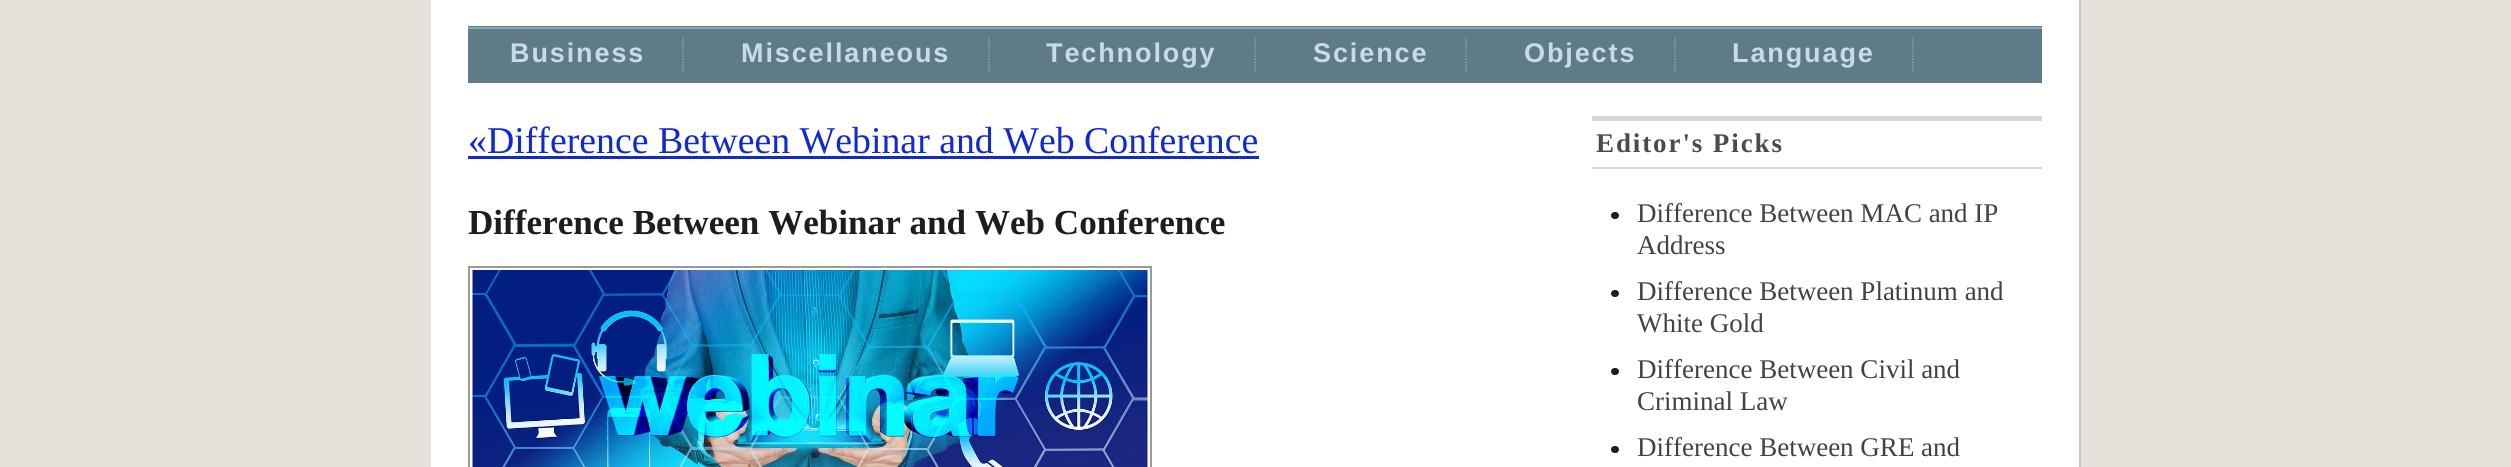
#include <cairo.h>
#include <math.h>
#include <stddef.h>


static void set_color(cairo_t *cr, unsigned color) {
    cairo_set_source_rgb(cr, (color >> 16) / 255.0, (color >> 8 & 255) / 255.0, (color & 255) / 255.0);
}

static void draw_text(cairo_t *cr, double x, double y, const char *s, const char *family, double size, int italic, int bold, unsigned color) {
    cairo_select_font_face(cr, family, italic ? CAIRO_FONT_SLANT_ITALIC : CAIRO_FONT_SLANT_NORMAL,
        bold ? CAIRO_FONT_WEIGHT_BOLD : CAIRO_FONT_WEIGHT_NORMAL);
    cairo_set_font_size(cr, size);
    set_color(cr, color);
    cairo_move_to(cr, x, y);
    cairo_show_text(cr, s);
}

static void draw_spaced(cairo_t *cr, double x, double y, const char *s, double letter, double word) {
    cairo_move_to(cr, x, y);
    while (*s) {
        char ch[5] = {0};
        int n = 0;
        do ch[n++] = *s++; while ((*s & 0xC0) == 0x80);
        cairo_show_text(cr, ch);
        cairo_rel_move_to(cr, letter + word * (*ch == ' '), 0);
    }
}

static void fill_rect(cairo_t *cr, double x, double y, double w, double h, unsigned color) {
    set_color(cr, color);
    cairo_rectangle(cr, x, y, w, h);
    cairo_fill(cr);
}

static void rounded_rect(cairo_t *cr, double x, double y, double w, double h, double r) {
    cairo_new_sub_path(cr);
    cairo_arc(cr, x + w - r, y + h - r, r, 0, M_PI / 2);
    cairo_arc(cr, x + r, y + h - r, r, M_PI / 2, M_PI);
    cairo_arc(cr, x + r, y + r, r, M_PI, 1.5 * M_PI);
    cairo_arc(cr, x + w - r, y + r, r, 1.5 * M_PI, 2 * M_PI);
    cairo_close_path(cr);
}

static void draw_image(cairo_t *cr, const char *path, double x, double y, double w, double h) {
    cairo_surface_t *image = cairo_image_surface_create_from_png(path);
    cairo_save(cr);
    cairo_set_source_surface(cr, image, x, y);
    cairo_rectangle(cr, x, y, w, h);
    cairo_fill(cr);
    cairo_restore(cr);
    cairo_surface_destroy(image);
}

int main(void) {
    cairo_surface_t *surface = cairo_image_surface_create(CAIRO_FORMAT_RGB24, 2511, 467);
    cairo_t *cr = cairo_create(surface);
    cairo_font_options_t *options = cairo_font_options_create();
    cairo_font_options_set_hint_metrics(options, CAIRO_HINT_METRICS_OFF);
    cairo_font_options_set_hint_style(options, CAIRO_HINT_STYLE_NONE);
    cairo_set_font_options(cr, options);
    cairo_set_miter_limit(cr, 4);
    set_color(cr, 0xE4E2DB);
    cairo_paint(cr);
    fill_rect(cr, 431, 0, 1648, 467, 0xFFFFFF);
    fill_rect(cr, 2079, 0, 2, 467, 0xCAC8C2);
    fill_rect(cr, 468, 26, 1574, 1, 0x607B88);
    fill_rect(cr, 468, 29, 1574, 54, 0x607B88);
    fill_rect(cr, 468, 27, 1574, 2, 0x83A8B9);
    cairo_new_path(cr);
    cairo_move_to(cr, 683, 37.5);
    cairo_line_to(cr, 683, 73.5);
    cairo_set_line_width(cr, 1.5);
    cairo_set_dash(cr, (double[]){1.5, 1.5}, 2, 0);
    cairo_stroke(cr);
    cairo_select_font_face(cr, "Liberation Sans", CAIRO_FONT_SLANT_NORMAL, CAIRO_FONT_WEIGHT_BOLD);
    cairo_set_font_size(cr, 27);
    set_color(cr, 0xC6DCE6);
    draw_spaced(cr, 510, 62, "Business", 1.9, 0);
    cairo_new_path(cr);
    cairo_move_to(cr, 989, 37.5);
    cairo_line_to(cr, 989, 73.5);
    set_color(cr, 0x83A8B9);
    cairo_stroke(cr);
    set_color(cr, 0xC6DCE6);
    draw_spaced(cr, 741, 62, "Miscellaneous", 1.9, 0);
    cairo_new_path(cr);
    cairo_move_to(cr, 1255, 37.5);
    cairo_line_to(cr, 1255, 73.5);
    set_color(cr, 0x83A8B9);
    cairo_stroke(cr);
    set_color(cr, 0xC6DCE6);
    draw_spaced(cr, 1046, 62, "Technology", 1.9, 0);
    cairo_new_path(cr);
    cairo_move_to(cr, 1466, 37.5);
    cairo_line_to(cr, 1466, 73.5);
    set_color(cr, 0x83A8B9);
    cairo_stroke(cr);
    set_color(cr, 0xC6DCE6);
    draw_spaced(cr, 1313, 62, "Science", 1.9, 0);
    cairo_new_path(cr);
    cairo_move_to(cr, 1675, 37.5);
    cairo_line_to(cr, 1675, 73.5);
    set_color(cr, 0x83A8B9);
    cairo_stroke(cr);
    set_color(cr, 0xC6DCE6);
    draw_spaced(cr, 1524, 62, "Objects", 1.9, 0);
    cairo_new_path(cr);
    cairo_move_to(cr, 1913, 37.5);
    cairo_line_to(cr, 1913, 73.5);
    set_color(cr, 0x83A8B9);
    cairo_stroke(cr);
    set_color(cr, 0xC6DCE6);
    draw_spaced(cr, 1732, 62, "Language", 1.9, 0);
    draw_text(cr, 468, 153, "«Difference Between Webinar and Web Conference", "Liberation Serif", 37.8, 0, 0, 0x1129D5);
    fill_rect(cr, 468, 156, 791, 3, 0x1129D5);
    draw_text(cr, 468, 234, "Difference Between Webinar and Web Conference", "Liberation Serif", 35.1, 0, 1, 0x1D1D1D);
    cairo_rectangle(cr, 469, 267, 682, 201);
    set_color(cr, 0x999999);
    cairo_set_line_width(cr, 2);
    cairo_set_dash(cr, NULL, 0, 0);
    cairo_stroke(cr);
    draw_image(cr, "assets/img1.png", 472, 270, 676, 197);
    fill_rect(cr, 1592, 116, 450, 5, 0xD7D7D7);
    fill_rect(cr, 1592, 167, 450, 2, 0xD7D7D7);
    cairo_set_font_size(cr, 27);
    set_color(cr, 0x4C4B46);
    draw_spaced(cr, 1596, 152, "Editor's Picks", 1.9, 0);
    set_color(cr, 0x1D1D1D);
    rounded_rect(cr, 1611, 212, 8, 7, 3.5);
    cairo_fill(cr);
    draw_text(cr, 1637, 222, "Difference Between MAC and IP", "Liberation Serif", 27, 0, 0, 0x424242);
    draw_text(cr, 1637, 254, "Address", "Liberation Serif", 27, 0, 0, 0x424242);
    set_color(cr, 0x1D1D1D);
    rounded_rect(cr, 1611, 290, 8, 7, 3.5);
    cairo_fill(cr);
    draw_text(cr, 1637, 300, "Difference Between Platinum and", "Liberation Serif", 27, 0, 0, 0x424242);
    draw_text(cr, 1637, 332, "White Gold", "Liberation Serif", 27, 0, 0, 0x424242);
    set_color(cr, 0x1D1D1D);
    rounded_rect(cr, 1611, 368, 8, 7, 3.5);
    cairo_fill(cr);
    draw_text(cr, 1637, 378, "Difference Between Civil and", "Liberation Serif", 27, 0, 0, 0x424242);
    draw_text(cr, 1637, 410, "Criminal Law", "Liberation Serif", 27, 0, 0, 0x424242);
    set_color(cr, 0x1D1D1D);
    rounded_rect(cr, 1611, 446, 8, 7, 3.5);
    cairo_fill(cr);
    draw_text(cr, 1637, 456, "Difference Between GRE and", "Liberation Serif", 27, 0, 0, 0x424242);
    cairo_surface_write_to_png(surface, "output.png");
    cairo_font_options_destroy(options);
    cairo_destroy(cr);
    cairo_surface_destroy(surface);
    return 0;
}
